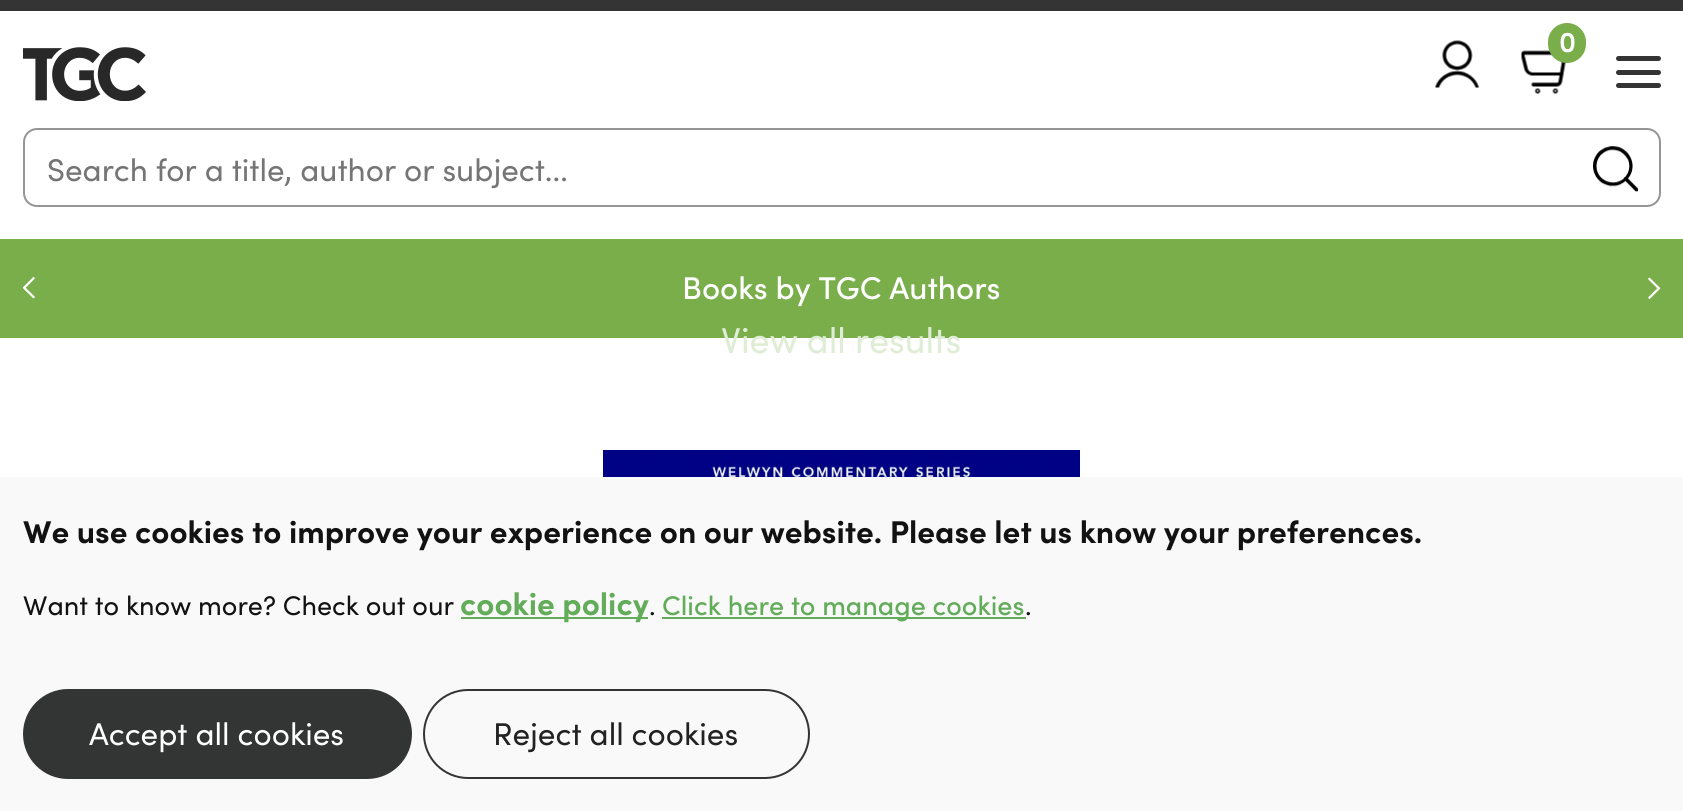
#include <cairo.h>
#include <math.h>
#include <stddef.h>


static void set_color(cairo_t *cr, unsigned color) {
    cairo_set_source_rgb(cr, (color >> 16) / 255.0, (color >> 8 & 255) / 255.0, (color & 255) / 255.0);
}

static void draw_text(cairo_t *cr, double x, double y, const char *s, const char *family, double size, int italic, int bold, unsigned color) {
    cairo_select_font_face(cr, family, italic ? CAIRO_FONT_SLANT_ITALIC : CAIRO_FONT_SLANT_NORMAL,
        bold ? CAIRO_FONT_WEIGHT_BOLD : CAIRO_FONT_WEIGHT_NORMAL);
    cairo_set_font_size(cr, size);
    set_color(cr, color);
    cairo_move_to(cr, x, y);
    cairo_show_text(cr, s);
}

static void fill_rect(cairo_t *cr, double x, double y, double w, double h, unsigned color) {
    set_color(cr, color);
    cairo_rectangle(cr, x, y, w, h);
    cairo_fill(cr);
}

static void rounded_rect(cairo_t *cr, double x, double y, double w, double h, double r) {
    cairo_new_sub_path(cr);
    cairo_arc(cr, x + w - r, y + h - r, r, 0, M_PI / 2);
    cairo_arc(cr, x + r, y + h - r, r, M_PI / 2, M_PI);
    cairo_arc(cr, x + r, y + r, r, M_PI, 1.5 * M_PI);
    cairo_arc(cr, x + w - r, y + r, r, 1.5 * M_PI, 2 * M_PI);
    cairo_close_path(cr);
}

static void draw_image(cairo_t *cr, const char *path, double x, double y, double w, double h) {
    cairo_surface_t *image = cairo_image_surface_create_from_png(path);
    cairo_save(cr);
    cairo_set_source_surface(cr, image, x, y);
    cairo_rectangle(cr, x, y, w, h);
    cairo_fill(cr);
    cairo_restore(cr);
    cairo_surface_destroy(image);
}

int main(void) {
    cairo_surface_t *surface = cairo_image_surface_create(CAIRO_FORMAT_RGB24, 1683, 811);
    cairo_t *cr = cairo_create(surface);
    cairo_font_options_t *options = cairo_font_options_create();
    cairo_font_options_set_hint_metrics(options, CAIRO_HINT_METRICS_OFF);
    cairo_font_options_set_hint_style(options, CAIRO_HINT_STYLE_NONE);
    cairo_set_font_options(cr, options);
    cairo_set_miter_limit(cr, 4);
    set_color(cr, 0xFFFFFF);
    cairo_paint(cr);
    fill_rect(cr, 0, 0, 1683, 11, 0x343434);
    draw_image(cr, "assets/img1.png", 1435, 40, 45, 48);
    draw_image(cr, "assets/img2.png", 1521, 50, 45, 44);
    set_color(cr, 0x79AE4A);
    rounded_rect(cr, 1548, 23, 38, 40, 19);
    cairo_fill(cr);
    draw_text(cr, 1559, 52, "0", "Sofia SemiBold", 29, 0, 0, 0xFFFFFF);
    set_color(cr, 0x343434);
    rounded_rect(cr, 1616, 56, 45, 5, 2.5);
    cairo_fill(cr);
    rounded_rect(cr, 1616, 70, 45, 5, 2.5);
    cairo_fill(cr);
    rounded_rect(cr, 1616, 83, 45, 5, 2.5);
    cairo_fill(cr);
    draw_image(cr, "assets/img3.png", 23, 47, 123, 54);
    rounded_rect(cr, 24, 129, 1636, 77, 13);
    set_color(cr, 0x959595);
    cairo_stroke(cr);
    draw_text(cr, 47, 181, "Search for a title, author or subject...", "Sofia", 31.5, 0, 0, 0x757575);
    draw_image(cr, "assets/img4.png", 1593, 146, 45, 46);
    fill_rect(cr, 0, 239, 1683, 99, 0x79AE4A);
    draw_text(cr, 682, 299, "Books by TGC Authors", "Sofia Medium", 31.5, 0, 0, 0xFFFFFF);
    draw_image(cr, "assets/img5.png", 23, 277, 12, 22);
    draw_image(cr, "assets/img6.png", 1648, 277, 13, 22);
    draw_image(cr, "assets/img7.png", 603, 450, 477, 27);
    fill_rect(cr, 0, 477, 1683, 334, 0xF9F9F9);
    draw_text(cr, 23, 543, "We use cookies to improve your experience on our website. Please let us know your preferences.", "Sofia", 31.5, 0, 1, 0x121212);
    draw_text(cr, 23, 615, "Want to know more? Check out our", "Sofia", 27, 0, 0, 0x121212);
    fill_rect(cr, 461, 617, 187, 2, 0x62AC5A);
    draw_text(cr, 460, 615, "cookie policy", "Sofia", 31.5, 0, 1, 0x62AC5A);
    draw_text(cr, 649, 615, ".", "Sofia", 27, 0, 0, 0x121212);
    fill_rect(cr, 662, 617, 364, 2, 0x62AC5A);
    draw_text(cr, 662, 615, "Click here to manage cookies", "Sofia Medium", 27, 0, 0, 0x62AC5A);
    draw_text(cr, 1025, 615, ".", "Sofia", 27, 0, 0, 0x121212);
    set_color(cr, 0x333434);
    rounded_rect(cr, 23, 689, 389, 90, 45);
    cairo_fill(cr);
    draw_text(cr, 89, 745, "Accept all cookies", "Sofia", 31.5, 0, 0, 0xFFFFFF);
    rounded_rect(cr, 424, 690, 385, 88, 44);
    set_color(cr, 0x333434);
    cairo_stroke(cr);
    draw_text(cr, 493, 745, "Reject all cookies", "Sofia", 31.5, 0, 0, 0x222222);
    draw_text(cr, 721, 353, "View all results", "Sofia", 36, 0, 0, 0xE0EDD6);
    cairo_surface_write_to_png(surface, "output.png");
    cairo_font_options_destroy(options);
    cairo_destroy(cr);
    cairo_surface_destroy(surface);
    return 0;
}
